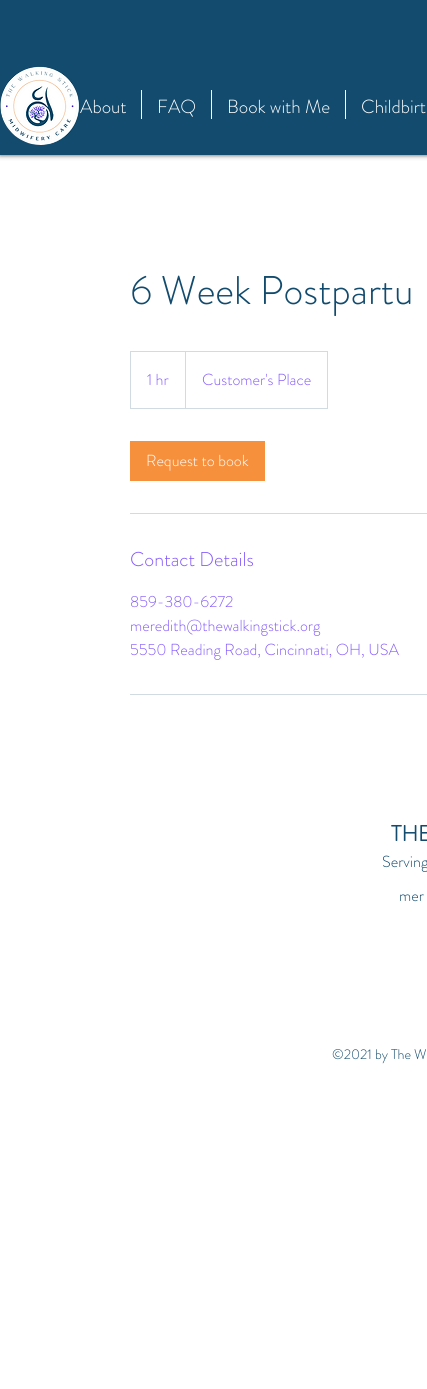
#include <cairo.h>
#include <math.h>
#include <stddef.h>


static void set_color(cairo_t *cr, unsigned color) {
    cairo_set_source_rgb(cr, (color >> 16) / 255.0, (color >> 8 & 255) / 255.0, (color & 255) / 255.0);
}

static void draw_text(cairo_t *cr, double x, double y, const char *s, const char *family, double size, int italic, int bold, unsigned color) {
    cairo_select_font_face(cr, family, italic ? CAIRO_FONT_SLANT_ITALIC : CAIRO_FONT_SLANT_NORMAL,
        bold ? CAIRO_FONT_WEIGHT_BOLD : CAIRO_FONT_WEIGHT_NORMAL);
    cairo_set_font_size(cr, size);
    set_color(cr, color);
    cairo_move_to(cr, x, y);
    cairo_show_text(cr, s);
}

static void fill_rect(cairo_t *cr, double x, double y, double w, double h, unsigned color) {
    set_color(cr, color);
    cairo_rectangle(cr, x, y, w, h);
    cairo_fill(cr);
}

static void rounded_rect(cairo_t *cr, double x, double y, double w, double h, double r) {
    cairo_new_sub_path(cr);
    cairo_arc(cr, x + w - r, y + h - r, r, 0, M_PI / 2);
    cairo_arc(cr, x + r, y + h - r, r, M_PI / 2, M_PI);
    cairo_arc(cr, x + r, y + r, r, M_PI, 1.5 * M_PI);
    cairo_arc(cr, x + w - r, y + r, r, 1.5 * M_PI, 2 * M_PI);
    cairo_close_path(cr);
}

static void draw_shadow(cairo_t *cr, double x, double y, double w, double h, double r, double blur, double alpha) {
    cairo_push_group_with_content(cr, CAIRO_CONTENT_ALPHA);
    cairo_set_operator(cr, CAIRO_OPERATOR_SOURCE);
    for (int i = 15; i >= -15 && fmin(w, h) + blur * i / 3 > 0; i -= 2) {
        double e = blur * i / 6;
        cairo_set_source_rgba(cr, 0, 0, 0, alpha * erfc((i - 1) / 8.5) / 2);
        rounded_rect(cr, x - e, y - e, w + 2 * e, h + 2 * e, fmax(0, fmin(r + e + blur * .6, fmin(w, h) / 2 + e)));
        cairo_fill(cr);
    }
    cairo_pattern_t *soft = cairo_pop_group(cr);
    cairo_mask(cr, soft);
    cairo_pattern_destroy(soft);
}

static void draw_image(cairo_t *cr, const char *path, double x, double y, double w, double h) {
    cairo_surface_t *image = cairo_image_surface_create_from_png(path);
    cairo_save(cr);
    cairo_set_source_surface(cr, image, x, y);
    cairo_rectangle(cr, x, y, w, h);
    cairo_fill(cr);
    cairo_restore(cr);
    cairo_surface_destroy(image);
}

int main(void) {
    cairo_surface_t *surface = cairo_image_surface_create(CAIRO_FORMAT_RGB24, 427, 1389);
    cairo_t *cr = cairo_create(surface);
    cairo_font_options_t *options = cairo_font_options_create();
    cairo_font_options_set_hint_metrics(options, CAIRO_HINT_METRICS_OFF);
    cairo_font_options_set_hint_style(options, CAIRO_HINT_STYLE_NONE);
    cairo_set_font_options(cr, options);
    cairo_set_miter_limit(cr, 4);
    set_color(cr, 0xFFFFFF);
    cairo_paint(cr);
    set_color(cr, 0x000000);
    draw_shadow(cr, 0, 0, 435, 155, 0, 2.5, 0.7);
    fill_rect(cr, 0, 0, 427, 155, 0x124B6D);
    draw_text(cr, 80, 113, "About", "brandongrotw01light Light", 19, 0, 0, 0xFFFFFF);
    draw_image(cr, "assets/img1.png", 0, 66, 80, 79);
    fill_rect(cr, 141, 90, 1, 29, 0xFFFFFF);
    draw_text(cr, 157, 113, "FAQ", "brandongrotw01light Light", 19, 0, 0, 0xFFFFFF);
    fill_rect(cr, 211, 90, 1, 29, 0xFFFFFF);
    draw_text(cr, 227, 113, "Book with Me", "brandongrotw01light Light", 19, 0, 0, 0xFFFFFF);
    fill_rect(cr, 345, 90, 1, 29, 0xFFFFFF);
    draw_text(cr, 361, 113, "Childbirt", "brandongrotw01light Light", 19, 0, 0, 0xFFFFFF);
    draw_text(cr, 130, 304, "6 Week Postpartu", "brandongrotw01light Light", 40, 0, 0, 0x124B6D);
    cairo_rectangle(cr, 130.5, 351.5, 197, 57);
    set_color(cr, 0xD0DBE2);
    cairo_set_line_width(cr, 1);
    cairo_stroke(cr);
    draw_text(cr, 147, 385, "1 hr", "brandongrotw01light Light", 16, 0, 0, 0x855CFB);
    set_color(cr, 0xD0DBE2);
    cairo_new_path(cr);
    cairo_move_to(cr, 185, 408);
    cairo_line_to(cr, 185, 351);
    cairo_line_to(cr, 186, 352);
    cairo_line_to(cr, 186, 408);
    cairo_close_path(cr);
    cairo_fill(cr);
    draw_text(cr, 202, 385, "Customer's Place", "brandongrotw01light Light", 16, 0, 0, 0x855CFB);
    fill_rect(cr, 130, 441, 135, 40, 0xF6903D);
    draw_text(cr, 146, 466, "Request to book", "brandongrotw01light Light", 16, 0, 0, 0xFFFFFF);
    fill_rect(cr, 130, 513, 297, 1, 0xD0DBE2);
    draw_text(cr, 130, 566, "Contact Details", "brandongrotw01light Light", 20, 0, 0, 0x855CFB);
    draw_text(cr, 130, 607, "859-380-6272", "brandongrotw01light Light", 16, 0, 0, 0x855CFB);
    draw_text(cr, 130, 631, "meredith@thewalkingstick.org", "brandongrotw01light Light", 16, 0, 0, 0x855CFB);
    draw_text(cr, 130, 655, "5550 Reading Road, Cincinnati, OH, USA", "brandongrotw01light Light", 16, 0, 0, 0x855CFB);
    fill_rect(cr, 130, 694, 297, 1, 0xD0DBE2);
    draw_text(cr, 391, 841, "THE", "brandongrotw01light", 22, 0, 1, 0x124B6D);
    draw_text(cr, 382, 867, "Serving", "brandongrotw01light Light", 16, 0, 0, 0x124B6D);
    draw_text(cr, 399, 901, "mer", "brandongrotw01light Light", 16, 0, 0, 0x124B6D);
    draw_text(cr, 332, 1059, "©2021 by The W", "brandongrotw01light Light", 14, 0, 0, 0x124B6D);
    cairo_surface_write_to_png(surface, "output.png");
    cairo_font_options_destroy(options);
    cairo_destroy(cr);
    cairo_surface_destroy(surface);
    return 0;
}
